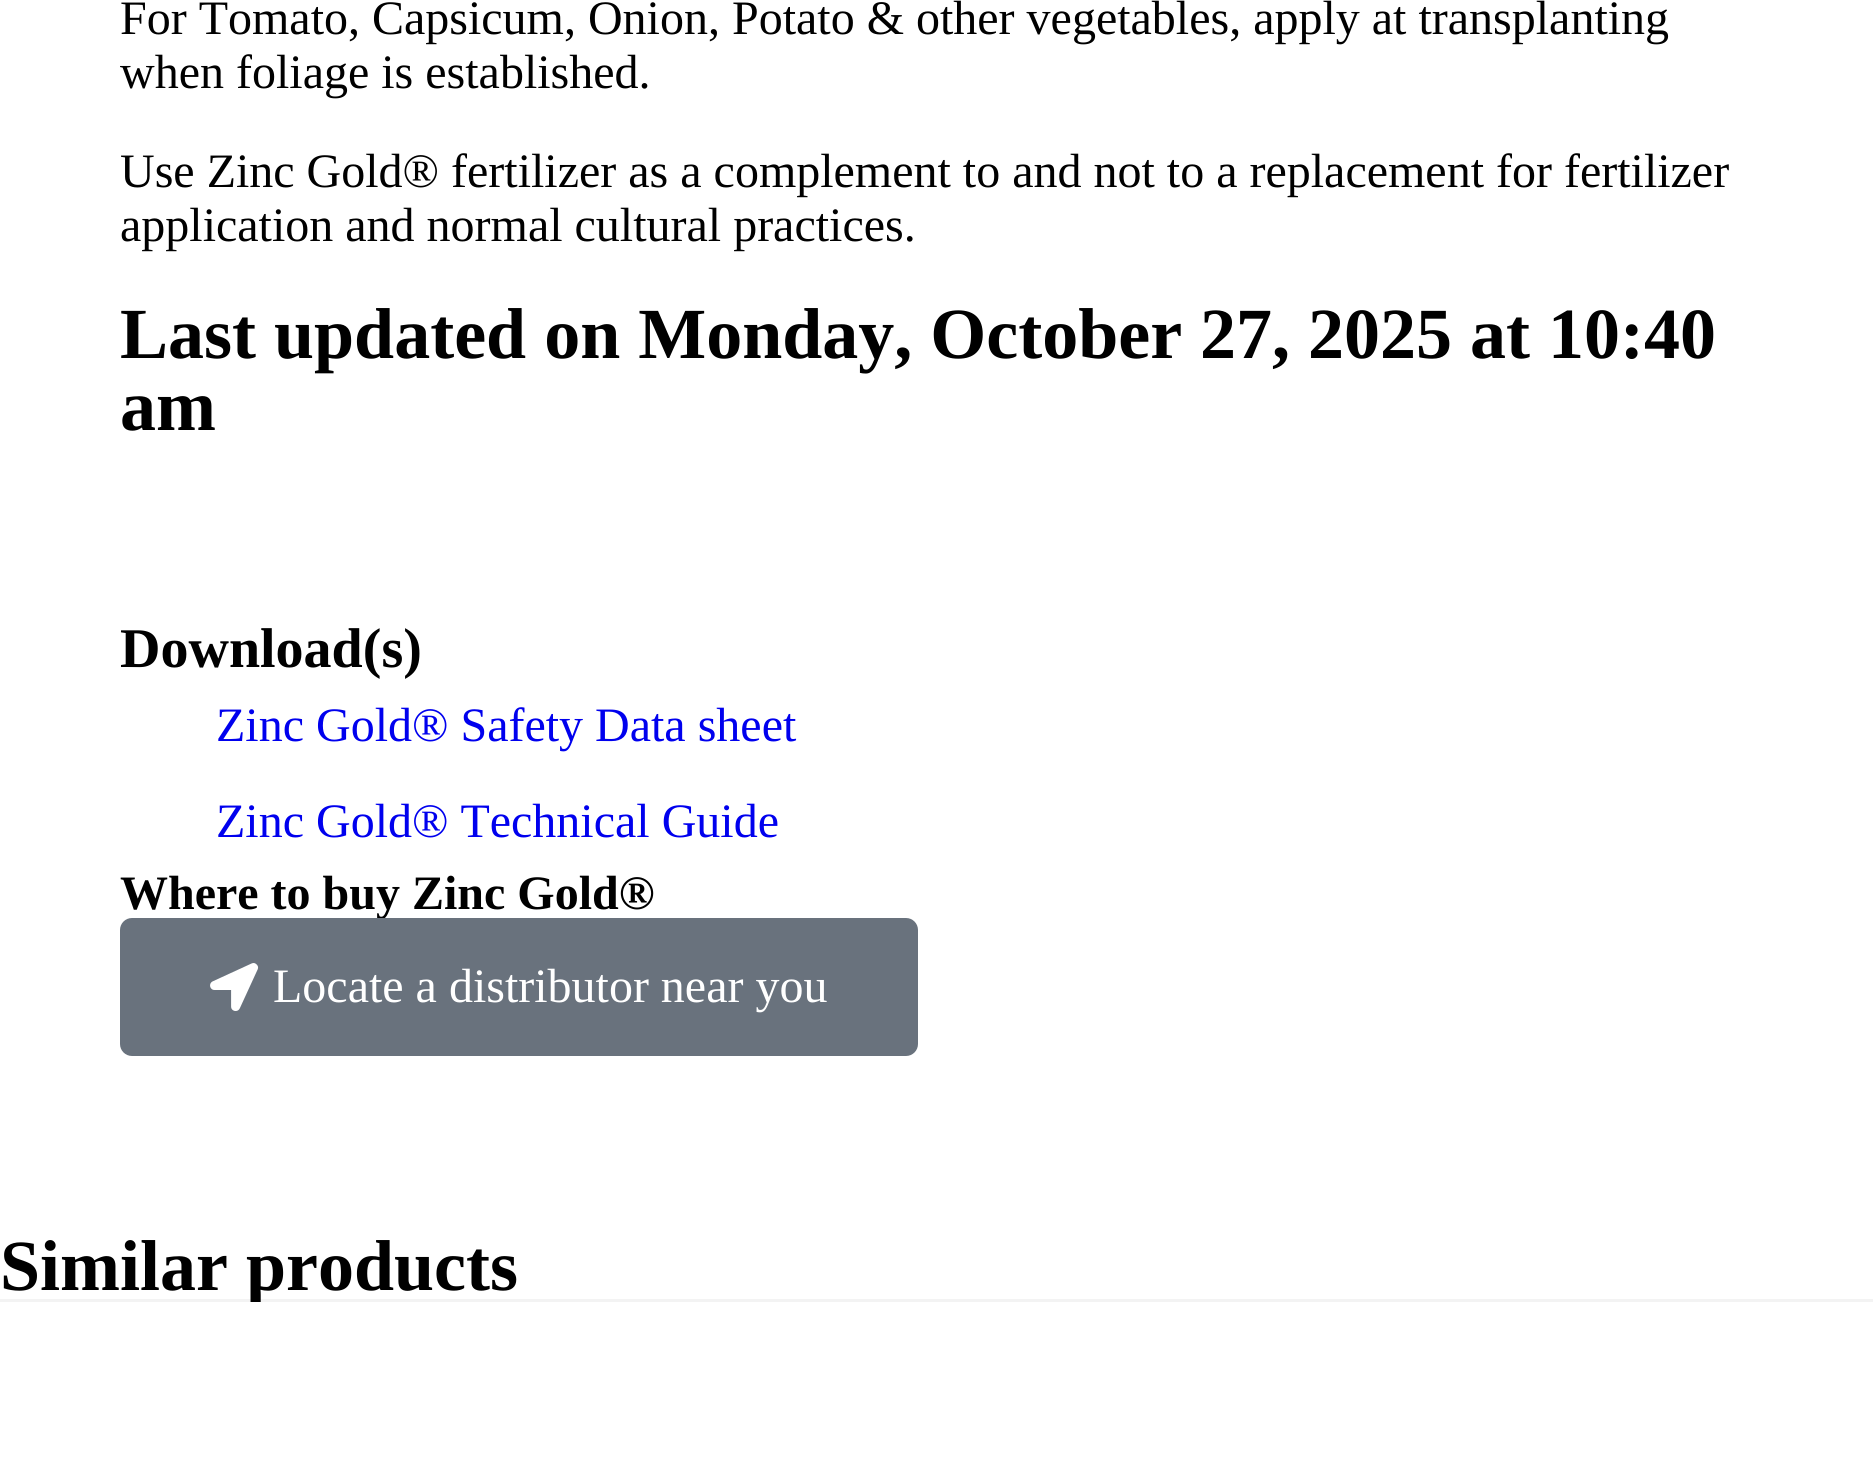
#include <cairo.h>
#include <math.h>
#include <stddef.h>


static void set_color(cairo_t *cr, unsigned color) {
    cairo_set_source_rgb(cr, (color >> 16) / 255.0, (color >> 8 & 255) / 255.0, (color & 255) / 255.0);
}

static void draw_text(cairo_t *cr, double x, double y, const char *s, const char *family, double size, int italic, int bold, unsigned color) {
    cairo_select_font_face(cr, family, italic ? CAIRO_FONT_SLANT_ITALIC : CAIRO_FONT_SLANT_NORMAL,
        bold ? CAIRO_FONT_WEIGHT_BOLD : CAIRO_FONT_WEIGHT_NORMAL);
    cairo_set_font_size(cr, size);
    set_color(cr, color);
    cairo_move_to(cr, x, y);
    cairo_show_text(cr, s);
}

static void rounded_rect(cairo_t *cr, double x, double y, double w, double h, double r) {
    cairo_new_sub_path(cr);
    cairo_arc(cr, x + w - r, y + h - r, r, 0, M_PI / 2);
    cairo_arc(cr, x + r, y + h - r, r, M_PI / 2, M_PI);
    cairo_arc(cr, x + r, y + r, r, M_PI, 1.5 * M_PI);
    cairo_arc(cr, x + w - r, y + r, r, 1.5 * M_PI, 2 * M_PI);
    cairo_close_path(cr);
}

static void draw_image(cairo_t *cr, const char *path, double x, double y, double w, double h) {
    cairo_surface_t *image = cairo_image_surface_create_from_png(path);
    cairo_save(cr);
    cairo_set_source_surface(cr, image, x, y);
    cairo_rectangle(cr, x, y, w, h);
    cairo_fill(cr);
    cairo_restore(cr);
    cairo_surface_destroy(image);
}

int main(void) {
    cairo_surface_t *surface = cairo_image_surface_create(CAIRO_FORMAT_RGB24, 1873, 1462);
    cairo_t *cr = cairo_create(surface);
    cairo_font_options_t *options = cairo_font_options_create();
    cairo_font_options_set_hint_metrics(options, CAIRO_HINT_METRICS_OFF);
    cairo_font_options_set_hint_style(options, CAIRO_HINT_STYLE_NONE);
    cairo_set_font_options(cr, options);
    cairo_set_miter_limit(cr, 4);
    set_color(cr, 0xFFFFFF);
    cairo_paint(cr);
    draw_text(cr, 120, 34, "For Tomato, Capsicum, Onion, Potato & other vegetables, apply at transplanting", "Liberation Serif", 48, 0, 0, 0x000000);
    draw_text(cr, 120, 88, "when foliage is established.", "Liberation Serif", 48, 0, 0, 0x000000);
    draw_text(cr, 120, 187, "Use Zinc Gold® fertilizer as a complement to and not to a replacement for fertilizer", "Liberation Serif", 48, 0, 0, 0x000000);
    draw_text(cr, 120, 241, "application and normal cultural practices.", "Liberation Serif", 48, 0, 0, 0x000000);
    draw_text(cr, 120, 358, "Last updated on Monday, October 27, 2025 at 10:40", "Liberation Serif", 72, 0, 1, 0x000000);
    draw_text(cr, 120, 430, "am", "Liberation Serif", 72, 0, 1, 0x000000);
    draw_text(cr, 120, 667, "Download(s)", "Liberation Serif", 56, 0, 1, 0x000000);
    draw_text(cr, 216, 741, "Zinc Gold® Safety Data sheet", "Liberation Serif", 48, 0, 0, 0x0000EE);
    draw_text(cr, 216, 837, "Zinc Gold® Technical Guide", "Liberation Serif", 48, 0, 0, 0x0000EE);
    draw_text(cr, 120, 909, "Where to buy Zinc Gold®", "Liberation Serif", 48, 0, 1, 0x000000);
    set_color(cr, 0x69727D);
    rounded_rect(cr, 120, 918, 798, 138, 12);
    cairo_fill(cr);
    draw_image(cr, "assets/img1.png", 210, 963, 49, 48);
    draw_text(cr, 273, 1002, "Locate a distributor near you", "Liberation Serif", 48, 0, 0, 0xFFFFFF);
    draw_text(cr, 0, 1290, "Similar products", "Liberation Serif", 72, 0, 1, 0x000000);
    cairo_rectangle(cr, -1.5, 1300.5, 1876, 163);
    cairo_set_source_rgba(cr, 0, 0, 0, 0.05);
    cairo_set_line_width(cr, 3);
    cairo_stroke(cr);
    set_color(cr, 0xFFFFFF);
    cairo_new_path(cr);
    cairo_move_to(cr, 30, 1302);
    cairo_line_to(cr, 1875, 1302);
    cairo_line_to(cr, 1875, 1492);
    cairo_line_to(cr, 30, 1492);
    cairo_curve_to(cr, 13.5, 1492, 0, 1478.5, 0, 1462);
    cairo_line_to(cr, 0, 1332);
    cairo_curve_to(cr, 0, 1315.5, 13.5, 1302, 30, 1302);
    cairo_close_path(cr);
    cairo_fill(cr);
    cairo_surface_write_to_png(surface, "output.png");
    cairo_font_options_destroy(options);
    cairo_destroy(cr);
    cairo_surface_destroy(surface);
    return 0;
}
